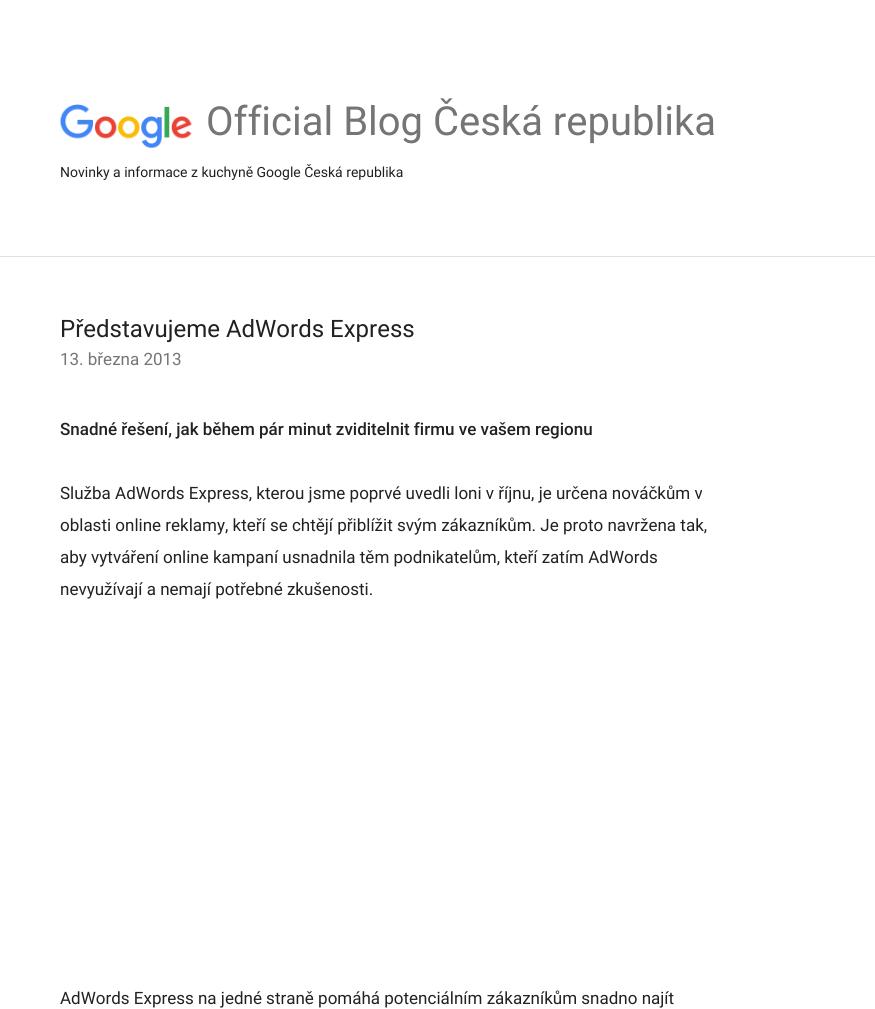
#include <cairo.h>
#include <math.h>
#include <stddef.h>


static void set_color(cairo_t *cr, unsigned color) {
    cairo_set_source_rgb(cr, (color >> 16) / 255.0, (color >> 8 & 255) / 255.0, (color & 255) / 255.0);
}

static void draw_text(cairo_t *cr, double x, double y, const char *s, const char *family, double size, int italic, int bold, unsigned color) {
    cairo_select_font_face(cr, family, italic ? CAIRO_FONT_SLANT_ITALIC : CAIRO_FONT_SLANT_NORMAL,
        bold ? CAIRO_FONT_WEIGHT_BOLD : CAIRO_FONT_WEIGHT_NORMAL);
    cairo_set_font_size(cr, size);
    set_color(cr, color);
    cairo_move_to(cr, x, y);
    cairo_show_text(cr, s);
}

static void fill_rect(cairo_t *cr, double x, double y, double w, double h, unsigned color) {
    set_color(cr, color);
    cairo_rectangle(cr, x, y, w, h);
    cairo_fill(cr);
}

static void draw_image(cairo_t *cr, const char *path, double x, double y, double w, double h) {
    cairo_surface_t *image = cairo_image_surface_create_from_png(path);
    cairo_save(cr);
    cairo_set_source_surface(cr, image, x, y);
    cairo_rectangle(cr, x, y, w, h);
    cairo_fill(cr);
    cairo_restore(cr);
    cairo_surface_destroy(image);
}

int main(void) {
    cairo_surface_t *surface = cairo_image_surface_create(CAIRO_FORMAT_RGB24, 875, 1009);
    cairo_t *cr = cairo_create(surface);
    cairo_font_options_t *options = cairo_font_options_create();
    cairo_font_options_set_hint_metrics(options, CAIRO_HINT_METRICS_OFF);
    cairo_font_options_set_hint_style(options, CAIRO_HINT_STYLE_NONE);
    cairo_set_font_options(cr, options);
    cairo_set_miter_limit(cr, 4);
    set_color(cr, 0xFFFFFF);
    cairo_paint(cr);
    fill_rect(cr, 0, 256, 875, 1, 0xE0E0E0);
    draw_image(cr, "assets/img1.png", 59, 104, 133, 44);
    draw_text(cr, 206, 135, "Official Blog Česká republika", "Roboto", 40, 0, 0, 0x757575);
    draw_text(cr, 60, 177, "Novinky a informace z kuchyně Google Česká republika", "Roboto", 14, 0, 0, 0x212121);
    draw_text(cr, 60, 337, "Představujeme AdWords Express", "Roboto", 24, 0, 0, 0x212121);
    draw_text(cr, 60, 365, "13. března 2013", "Roboto", 17, 0, 0, 0x757575);
    draw_text(cr, 60, 435, "Snadné řešení, jak během pár minut zviditelnit firmu ve vašem regionu", "Roboto Medium", 17, 0, 0, 0x212121);
    draw_text(cr, 60, 499, "Služba AdWords Express, kterou jsme poprvé uvedli loni v říjnu, je určena nováčkům v", "Roboto", 17, 0, 0, 0x212121);
    draw_text(cr, 60, 531, "oblasti online reklamy, kteří se chtějí přiblížit svým zákazníkům. Je proto navržena tak,", "Roboto", 17, 0, 0, 0x212121);
    draw_text(cr, 60, 563, "aby vytváření online kampaní usnadnila těm podnikatelům, kteří zatím AdWords", "Roboto", 17, 0, 0, 0x212121);
    draw_text(cr, 60, 595, "nevyužívají a nemají potřebné zkušenosti.", "Roboto", 17, 0, 0, 0x212121);
    draw_text(cr, 60, 1004, "AdWords Express na jedné straně pomáhá potenciálním zákazníkům snadno najít", "Roboto", 17, 0, 0, 0x212121);
    cairo_surface_write_to_png(surface, "output.png");
    cairo_font_options_destroy(options);
    cairo_destroy(cr);
    cairo_surface_destroy(surface);
    return 0;
}
